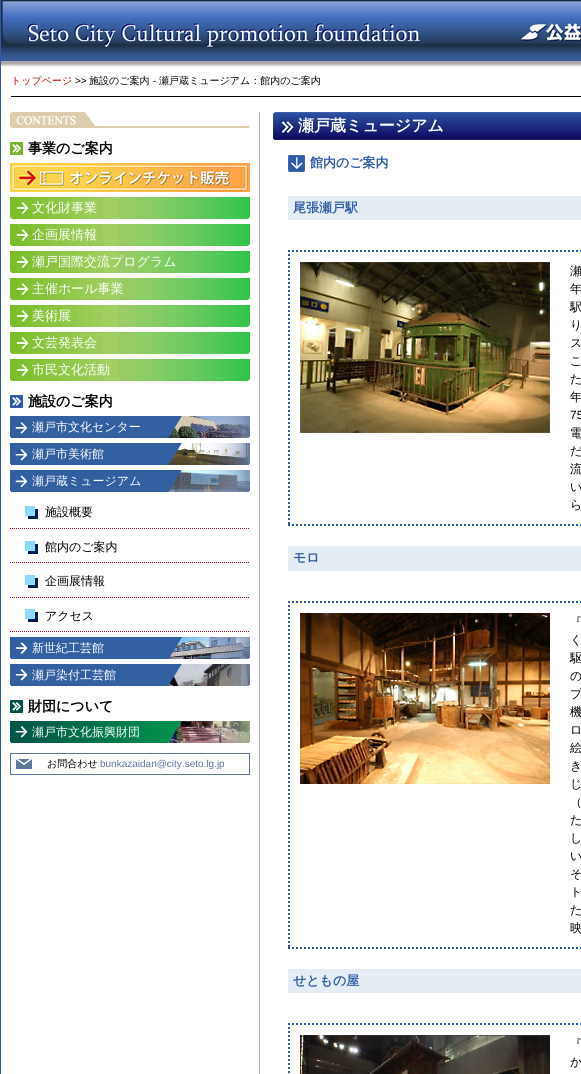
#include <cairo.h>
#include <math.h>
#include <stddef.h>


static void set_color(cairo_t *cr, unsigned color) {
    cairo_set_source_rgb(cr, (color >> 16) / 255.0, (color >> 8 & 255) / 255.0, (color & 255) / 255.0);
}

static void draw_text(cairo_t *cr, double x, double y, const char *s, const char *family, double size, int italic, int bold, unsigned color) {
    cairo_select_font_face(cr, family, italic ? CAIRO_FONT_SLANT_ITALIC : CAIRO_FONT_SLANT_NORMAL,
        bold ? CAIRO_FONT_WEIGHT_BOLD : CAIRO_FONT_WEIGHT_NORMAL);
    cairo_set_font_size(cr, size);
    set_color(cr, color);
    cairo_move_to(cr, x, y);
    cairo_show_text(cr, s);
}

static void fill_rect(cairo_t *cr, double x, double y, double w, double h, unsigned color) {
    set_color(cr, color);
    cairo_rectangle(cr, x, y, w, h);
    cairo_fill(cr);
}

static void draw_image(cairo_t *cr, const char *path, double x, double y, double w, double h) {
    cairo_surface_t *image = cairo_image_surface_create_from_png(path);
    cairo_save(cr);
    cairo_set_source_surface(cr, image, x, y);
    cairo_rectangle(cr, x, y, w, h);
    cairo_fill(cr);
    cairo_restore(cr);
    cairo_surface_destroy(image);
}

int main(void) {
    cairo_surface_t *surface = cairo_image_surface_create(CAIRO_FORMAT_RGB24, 581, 1074);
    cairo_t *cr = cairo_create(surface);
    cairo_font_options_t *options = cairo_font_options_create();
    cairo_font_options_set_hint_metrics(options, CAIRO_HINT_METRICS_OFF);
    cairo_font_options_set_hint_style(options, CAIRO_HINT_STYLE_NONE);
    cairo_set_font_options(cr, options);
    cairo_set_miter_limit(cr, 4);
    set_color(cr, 0xFFFFFF);
    cairo_paint(cr);
    fill_rect(cr, 0, 0, 1, 1074, 0x305BA9);
    draw_image(cr, "assets/img1.png", 1, 61, 580, 6);
    draw_image(cr, "assets/img2.png", 1, 0, 580, 61);
    fill_rect(cr, 11, 96, 570, 1, 0x000000);
    draw_text(cr, 11, 84, "トップページ", "WenQuanYi Zen Hei Medium", 10, 0, 0, 0xBA0000);
    draw_text(cr, 75, 84, ">>", "Liberation Sans", 10, 0, 0, 0x000000);
    draw_text(cr, 89, 84, "施設のご案内", "WenQuanYi Zen Hei Medium", 10, 0, 0, 0x000000);
    draw_text(cr, 153, 84, "-", "Liberation Sans", 10, 0, 0, 0x000000);
    draw_text(cr, 159, 84, "瀬戸蔵ミュージアム：館内のご案内", "WenQuanYi Zen Hei Medium", 10, 0, 0, 0x000000);
    draw_image(cr, "assets/img3.png", 10, 112, 240, 16);
    draw_image(cr, "assets/img4.png", 10, 142, 13, 13);
    draw_text(cr, 28, 153, "事業のご案内", "WenQuanYi Zen Hei", 14, 0, 1, 0x000000);
    draw_image(cr, "assets/img5.png", 10, 163, 240, 29);
    draw_image(cr, "assets/img6.png", 10, 197, 240, 22);
    draw_text(cr, 32, 212, "文化財事業", "WenQuanYi Zen Hei Medium", 13, 0, 0, 0xFFFFFF);
    draw_image(cr, "assets/img6.png", 10, 224, 240, 22);
    draw_text(cr, 32, 239, "企画展情報", "WenQuanYi Zen Hei Medium", 13, 0, 0, 0xFFFFFF);
    draw_image(cr, "assets/img6.png", 10, 251, 240, 22);
    draw_text(cr, 32, 266, "瀬戸国際交流プログラム", "WenQuanYi Zen Hei Medium", 13, 0, 0, 0xFFFFFF);
    draw_image(cr, "assets/img6.png", 10, 278, 240, 22);
    draw_text(cr, 32, 293, "主催ホール事業", "WenQuanYi Zen Hei Medium", 13, 0, 0, 0xFFFFFF);
    draw_image(cr, "assets/img6.png", 10, 305, 240, 22);
    draw_text(cr, 32, 320, "美術展", "WenQuanYi Zen Hei Medium", 13, 0, 0, 0xFFFFFF);
    draw_image(cr, "assets/img6.png", 10, 332, 240, 22);
    draw_text(cr, 32, 347, "文芸発表会", "WenQuanYi Zen Hei Medium", 13, 0, 0, 0xFFFFFF);
    draw_image(cr, "assets/img6.png", 10, 359, 240, 22);
    draw_text(cr, 32, 374, "市民文化活動", "WenQuanYi Zen Hei Medium", 13, 0, 0, 0xFFFFFF);
    draw_image(cr, "assets/img7.png", 10, 395, 13, 13);
    draw_text(cr, 28, 406, "施設のご案内", "WenQuanYi Zen Hei", 14, 0, 1, 0x000000);
    draw_image(cr, "assets/img8.png", 10, 416, 240, 22);
    draw_text(cr, 32, 431, "瀬戸市文化センター", "WenQuanYi Zen Hei Medium", 12, 0, 0, 0xFFFFFF);
    draw_image(cr, "assets/img9.png", 10, 443, 240, 22);
    draw_text(cr, 32, 458, "瀬戸市美術館", "WenQuanYi Zen Hei Medium", 12, 0, 0, 0xFFFFFF);
    draw_image(cr, "assets/img10.png", 10, 470, 240, 22);
    draw_text(cr, 32, 485, "瀬戸蔵ミュージアム", "WenQuanYi Zen Hei Medium", 12, 0, 0, 0xFFFFFF);
    cairo_new_path(cr);
    cairo_move_to(cr, 10, 528.5);
    cairo_line_to(cr, 250, 528.5);
    set_color(cr, 0x761121);
    cairo_set_line_width(cr, 1);
    cairo_set_dash(cr, (double[]){1, 1}, 2, 0);
    cairo_stroke(cr);
    draw_image(cr, "assets/img11.png", 25, 506, 13, 13);
    draw_text(cr, 45, 516, "施設概要", "WenQuanYi Zen Hei Medium", 12, 0, 0, 0x000000);
    cairo_new_path(cr);
    cairo_move_to(cr, 10, 562.5);
    cairo_line_to(cr, 250, 562.5);
    set_color(cr, 0x761121);
    cairo_stroke(cr);
    draw_image(cr, "assets/img11.png", 25, 541, 13, 13);
    draw_text(cr, 45, 551, "館内のご案内", "WenQuanYi Zen Hei Medium", 12, 0, 0, 0x000000);
    cairo_new_path(cr);
    cairo_move_to(cr, 10, 597.5);
    cairo_line_to(cr, 250, 597.5);
    set_color(cr, 0x761121);
    cairo_stroke(cr);
    draw_image(cr, "assets/img11.png", 25, 575, 13, 13);
    draw_text(cr, 45, 585, "企画展情報", "WenQuanYi Zen Hei Medium", 12, 0, 0, 0x000000);
    cairo_new_path(cr);
    cairo_move_to(cr, 10, 631.5);
    cairo_line_to(cr, 250, 631.5);
    set_color(cr, 0x761121);
    cairo_stroke(cr);
    draw_image(cr, "assets/img11.png", 25, 609, 13, 13);
    draw_text(cr, 45, 620, "アクセス", "WenQuanYi Zen Hei Medium", 12, 0, 0, 0x000000);
    draw_image(cr, "assets/img12.png", 10, 637, 240, 22);
    draw_text(cr, 32, 652, "新世紀工芸館", "WenQuanYi Zen Hei Medium", 12, 0, 0, 0xFFFFFF);
    draw_image(cr, "assets/img13.png", 10, 664, 240, 22);
    draw_text(cr, 32, 679, "瀬戸染付工芸館", "WenQuanYi Zen Hei Medium", 12, 0, 0, 0xFFFFFF);
    draw_image(cr, "assets/img14.png", 10, 700, 13, 13);
    draw_text(cr, 28, 711, "財団について", "WenQuanYi Zen Hei", 14, 0, 1, 0x000000);
    draw_image(cr, "assets/img15.png", 10, 721, 240, 22);
    draw_text(cr, 32, 736, "瀬戸市文化振興財団", "WenQuanYi Zen Hei Medium", 12, 0, 0, 0xFFFFFF);
    draw_image(cr, "assets/img16.png", 16, 759, 16, 10);
    cairo_rectangle(cr, 10.5, 753.5, 239, 21);
    set_color(cr, 0x5F76A1);
    cairo_set_dash(cr, NULL, 0, 0);
    cairo_stroke(cr);
    draw_text(cr, 47, 767, "お問合わせ", "WenQuanYi Zen Hei Medium", 10, 0, 0, 0x000000);
    draw_text(cr, 100, 767, "bunkazaidan@city.seto.lg.jp", "Liberation Sans", 10, 0, 0, 0x5F76A1);
    fill_rect(cr, 259, 112, 1, 962, 0xC1AB9D);
    draw_image(cr, "assets/img17.png", 273, 112, 308, 28);
    draw_text(cr, 298, 131, "瀬戸蔵ミュージアム", "WenQuanYi Zen Hei", 16, 0, 1, 0xFFFFFF);
    draw_image(cr, "assets/img18.png", 288, 155, 17, 17);
    draw_text(cr, 310, 167, "館内のご案内", "WenQuanYi Zen Hei", 13, 0, 1, 0x305BA9);
    fill_rect(cr, 288, 196, 293, 24, 0xE4ECF4);
    draw_text(cr, 293, 212, "尾張瀬戸駅", "WenQuanYi Zen Hei", 13, 0, 1, 0x305BA9);
    cairo_new_path(cr);
    cairo_move_to(cr, 288, 251);
    cairo_line_to(cr, 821, 251);
    cairo_set_line_width(cr, 2);
    cairo_set_dash(cr, (double[]){2, 2}, 2, 0);
    cairo_stroke(cr);
    cairo_new_path(cr);
    cairo_move_to(cr, 288, 525);
    cairo_line_to(cr, 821, 525);
    cairo_stroke(cr);
    cairo_new_path(cr);
    cairo_move_to(cr, 289, 250);
    cairo_line_to(cr, 289, 526);
    cairo_stroke(cr);
    draw_image(cr, "assets/img19.png", 300, 262, 250, 171);
    draw_text(cr, 570, 275, "瀬", "WenQuanYi Zen Hei Medium", 12, 0, 0, 0x000000);
    draw_text(cr, 570, 293, "年", "WenQuanYi Zen Hei Medium", 12, 0, 0, 0x000000);
    draw_text(cr, 570, 311, "駅", "WenQuanYi Zen Hei Medium", 12, 0, 0, 0x000000);
    draw_text(cr, 570, 329, "り", "WenQuanYi Zen Hei Medium", 12, 0, 0, 0x000000);
    draw_text(cr, 570, 347, "ス", "WenQuanYi Zen Hei Medium", 12, 0, 0, 0x000000);
    draw_text(cr, 570, 365, "こ", "WenQuanYi Zen Hei Medium", 12, 0, 0, 0x000000);
    draw_text(cr, 570, 383, "た", "WenQuanYi Zen Hei Medium", 12, 0, 0, 0x000000);
    draw_text(cr, 570, 401, "年", "WenQuanYi Zen Hei Medium", 12, 0, 0, 0x000000);
    draw_text(cr, 570, 419, "75", "Liberation Sans", 12, 0, 0, 0x000000);
    draw_text(cr, 570, 437, "電", "WenQuanYi Zen Hei Medium", 12, 0, 0, 0x000000);
    draw_text(cr, 570, 455, "だ", "WenQuanYi Zen Hei Medium", 12, 0, 0, 0x000000);
    draw_text(cr, 570, 473, "流", "WenQuanYi Zen Hei Medium", 12, 0, 0, 0x000000);
    draw_text(cr, 570, 491, "い", "WenQuanYi Zen Hei Medium", 12, 0, 0, 0x000000);
    draw_text(cr, 570, 509, "ら", "WenQuanYi Zen Hei Medium", 12, 0, 0, 0x000000);
    fill_rect(cr, 288, 546, 293, 25, 0xE4ECF4);
    draw_text(cr, 293, 562, "モロ", "WenQuanYi Zen Hei", 13, 0, 1, 0x305BA9);
    cairo_new_path(cr);
    cairo_move_to(cr, 288, 602);
    cairo_line_to(cr, 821, 602);
    cairo_stroke(cr);
    cairo_new_path(cr);
    cairo_move_to(cr, 288, 948);
    cairo_line_to(cr, 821, 948);
    cairo_stroke(cr);
    cairo_new_path(cr);
    cairo_move_to(cr, 289, 601);
    cairo_line_to(cr, 289, 949);
    cairo_stroke(cr);
    draw_image(cr, "assets/img20.png", 300, 613, 250, 171);
    draw_text(cr, 570, 626, "『", "WenQuanYi Zen Hei Medium", 12, 0, 0, 0x000000);
    draw_text(cr, 570, 644, "く", "WenQuanYi Zen Hei Medium", 12, 0, 0, 0x000000);
    draw_text(cr, 570, 662, "駆", "WenQuanYi Zen Hei Medium", 12, 0, 0, 0x000000);
    draw_text(cr, 570, 680, "の", "WenQuanYi Zen Hei Medium", 12, 0, 0, 0x000000);
    draw_text(cr, 570, 698, "プ", "WenQuanYi Zen Hei Medium", 12, 0, 0, 0x000000);
    draw_text(cr, 570, 716, "機", "WenQuanYi Zen Hei Medium", 12, 0, 0, 0x000000);
    draw_text(cr, 570, 734, "ロ", "WenQuanYi Zen Hei Medium", 12, 0, 0, 0x000000);
    draw_text(cr, 570, 752, "絵", "WenQuanYi Zen Hei Medium", 12, 0, 0, 0x000000);
    draw_text(cr, 570, 770, "き", "WenQuanYi Zen Hei Medium", 12, 0, 0, 0x000000);
    draw_text(cr, 570, 788, "じ", "WenQuanYi Zen Hei Medium", 12, 0, 0, 0x000000);
    draw_text(cr, 570, 806, "（", "WenQuanYi Zen Hei Medium", 12, 0, 0, 0x000000);
    draw_text(cr, 570, 824, "た", "WenQuanYi Zen Hei Medium", 12, 0, 0, 0x000000);
    draw_text(cr, 570, 842, "し", "WenQuanYi Zen Hei Medium", 12, 0, 0, 0x000000);
    draw_text(cr, 570, 860, "い", "WenQuanYi Zen Hei Medium", 12, 0, 0, 0x000000);
    draw_text(cr, 570, 878, "そ", "WenQuanYi Zen Hei Medium", 12, 0, 0, 0x000000);
    draw_text(cr, 570, 896, "ト", "WenQuanYi Zen Hei Medium", 12, 0, 0, 0x000000);
    draw_text(cr, 570, 914, "た", "WenQuanYi Zen Hei Medium", 12, 0, 0, 0x000000);
    draw_text(cr, 570, 932, "映", "WenQuanYi Zen Hei Medium", 12, 0, 0, 0x000000);
    fill_rect(cr, 288, 969, 293, 24, 0xE4ECF4);
    draw_text(cr, 293, 985, "せともの屋", "WenQuanYi Zen Hei", 13, 0, 1, 0x305BA9);
    cairo_new_path(cr);
    cairo_move_to(cr, 288, 1024);
    cairo_line_to(cr, 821, 1024);
    cairo_stroke(cr);
    cairo_new_path(cr);
    cairo_move_to(cr, 289, 1023);
    cairo_line_to(cr, 289, 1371);
    cairo_stroke(cr);
    draw_image(cr, "assets/img21.png", 300, 1035, 250, 39);
    draw_text(cr, 570, 1048, "『", "WenQuanYi Zen Hei Medium", 12, 0, 0, 0x000000);
    draw_text(cr, 570, 1066, "か", "WenQuanYi Zen Hei Medium", 12, 0, 0, 0x000000);
    cairo_surface_write_to_png(surface, "output.png");
    cairo_font_options_destroy(options);
    cairo_destroy(cr);
    cairo_surface_destroy(surface);
    return 0;
}
